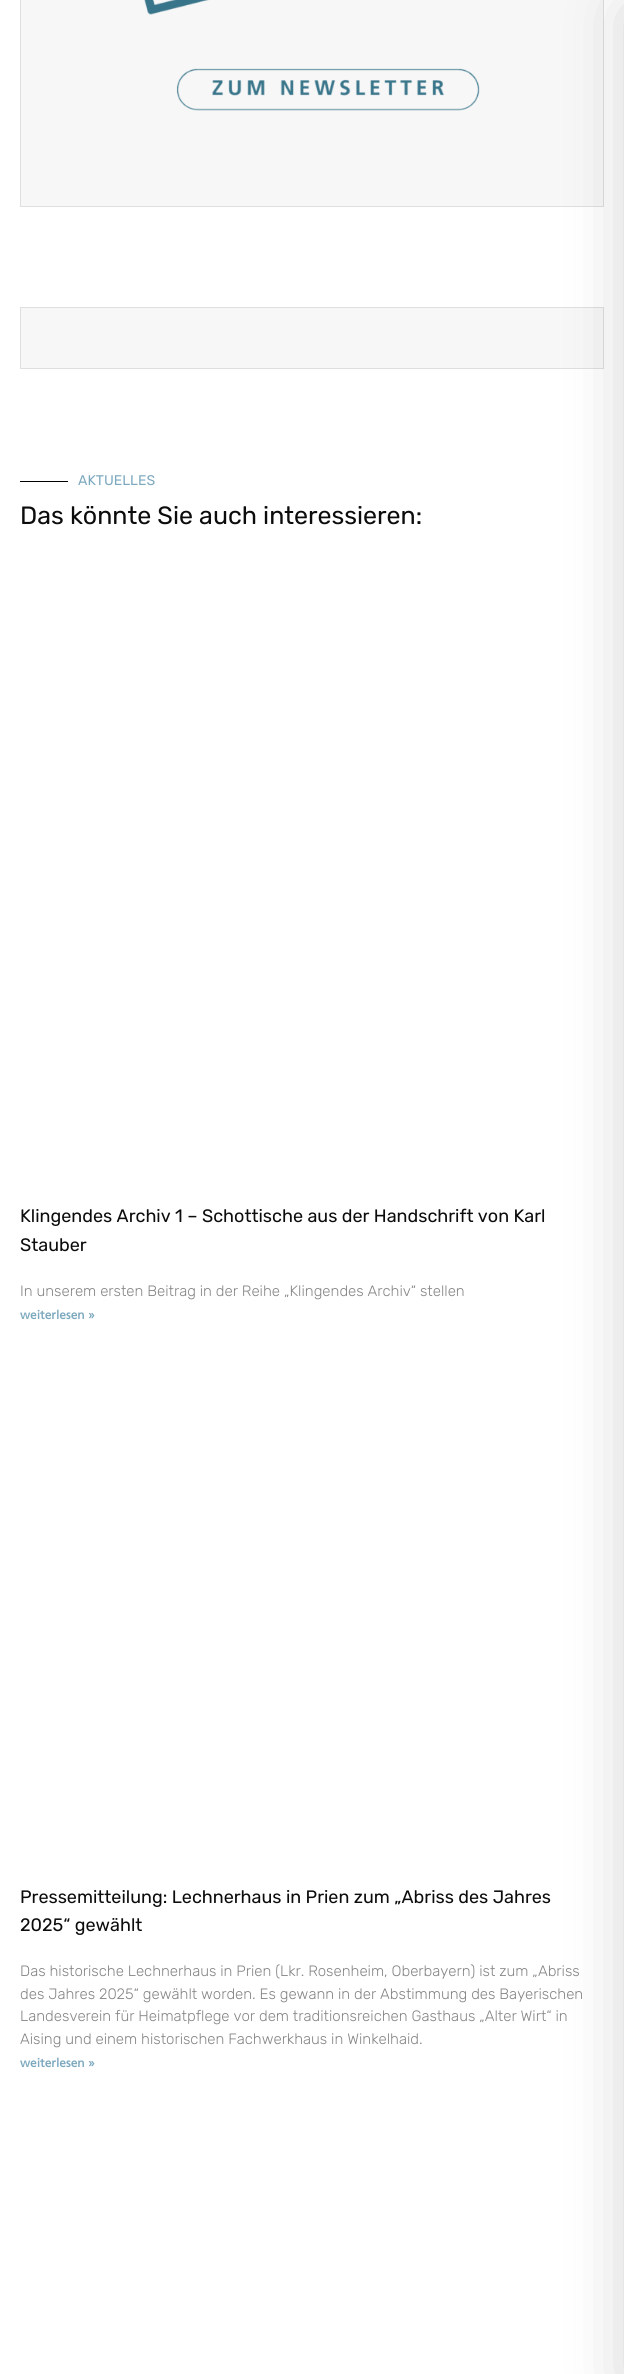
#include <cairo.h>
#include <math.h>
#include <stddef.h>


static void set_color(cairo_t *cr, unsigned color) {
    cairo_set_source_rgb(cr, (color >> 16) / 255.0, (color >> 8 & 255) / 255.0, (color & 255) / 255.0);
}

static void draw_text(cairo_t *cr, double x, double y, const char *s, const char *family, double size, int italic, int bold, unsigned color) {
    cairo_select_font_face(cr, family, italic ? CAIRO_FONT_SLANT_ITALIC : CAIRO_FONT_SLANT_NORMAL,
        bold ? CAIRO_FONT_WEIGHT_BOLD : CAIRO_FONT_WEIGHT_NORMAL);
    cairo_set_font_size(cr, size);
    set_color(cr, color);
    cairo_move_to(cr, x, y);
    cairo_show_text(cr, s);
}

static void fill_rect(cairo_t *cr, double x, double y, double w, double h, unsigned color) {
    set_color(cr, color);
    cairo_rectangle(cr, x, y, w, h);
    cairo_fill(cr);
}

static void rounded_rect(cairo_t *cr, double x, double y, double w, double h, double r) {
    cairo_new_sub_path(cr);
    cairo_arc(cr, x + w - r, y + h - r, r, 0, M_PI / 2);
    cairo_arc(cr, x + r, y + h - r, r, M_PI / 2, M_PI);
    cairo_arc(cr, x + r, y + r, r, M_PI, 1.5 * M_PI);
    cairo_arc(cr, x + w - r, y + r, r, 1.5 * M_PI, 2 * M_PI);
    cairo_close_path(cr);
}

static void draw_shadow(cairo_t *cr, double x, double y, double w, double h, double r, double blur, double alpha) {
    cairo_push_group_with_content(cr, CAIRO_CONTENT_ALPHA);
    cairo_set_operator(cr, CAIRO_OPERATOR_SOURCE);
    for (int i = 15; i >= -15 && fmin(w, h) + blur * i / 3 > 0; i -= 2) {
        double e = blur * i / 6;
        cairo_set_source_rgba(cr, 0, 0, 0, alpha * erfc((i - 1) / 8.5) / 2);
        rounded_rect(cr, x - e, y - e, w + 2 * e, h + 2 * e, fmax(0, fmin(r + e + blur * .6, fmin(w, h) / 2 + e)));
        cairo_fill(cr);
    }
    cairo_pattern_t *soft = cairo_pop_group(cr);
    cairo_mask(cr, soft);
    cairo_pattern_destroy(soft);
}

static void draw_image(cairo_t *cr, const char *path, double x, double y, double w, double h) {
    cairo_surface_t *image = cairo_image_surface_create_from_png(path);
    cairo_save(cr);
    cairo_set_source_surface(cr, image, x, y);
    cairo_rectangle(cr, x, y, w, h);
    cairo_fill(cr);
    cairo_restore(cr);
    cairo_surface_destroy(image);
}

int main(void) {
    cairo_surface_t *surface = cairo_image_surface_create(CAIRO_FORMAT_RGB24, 624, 2374);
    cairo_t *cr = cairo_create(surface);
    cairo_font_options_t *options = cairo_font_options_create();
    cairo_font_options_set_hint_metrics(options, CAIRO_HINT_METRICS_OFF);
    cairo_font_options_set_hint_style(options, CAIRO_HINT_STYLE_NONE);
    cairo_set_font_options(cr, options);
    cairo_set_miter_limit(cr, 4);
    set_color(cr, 0xFFFFFF);
    cairo_paint(cr);
    set_color(cr, 0xF7F7F7);
    cairo_rectangle(cr, 20.5, -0.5, 583, 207);
    cairo_fill_preserve(cr);
    set_color(cr, 0xDFDFDF);
    cairo_set_line_width(cr, 1);
    cairo_stroke(cr);
    set_color(cr, 0xF7F7F7);
    cairo_rectangle(cr, 20.5, 307.5, 583, 61);
    cairo_fill_preserve(cr);
    set_color(cr, 0xDFDFDF);
    cairo_stroke(cr);
    set_color(cr, 0x000000);
    draw_shadow(cr, 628, 10, 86, 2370, 0, 30, 0.2);
    draw_image(cr, "assets/img1.png", 144, 0, 336, 111);
    fill_rect(cr, 20, 481, 48, 1, 0x000000);
    draw_text(cr, 78, 485, "AKTUELLES", "Rubik", 14, 0, 0, 0x7DA9BF);
    draw_text(cr, 20, 524, "Das könnte Sie auch interessieren:", "Rubik", 25, 0, 0, 0x0C0C0C);
    draw_text(cr, 20, 1222, "Klingendes Archiv 1 – Schottische aus der Handschrift von Karl", "Rubik", 18, 0, 0, 0x0C0C0C);
    draw_text(cr, 20, 1251, "Stauber", "Rubik", 18, 0, 0, 0x0C0C0C);
    draw_text(cr, 20, 1296, "In unserem ersten Beitrag in der Reihe „Klingendes Archiv“ stellen", "Rubik Light", 15, 0, 0, 0x868686);
    draw_text(cr, 20, 1319, "weiterlesen »", "Frutiger", 12, 0, 1, 0x7DA9BF);
    draw_text(cr, 20, 1903, "Pressemitteilung: Lechnerhaus in Prien zum „Abriss des Jahres", "Rubik", 18, 0, 0, 0x0C0C0C);
    draw_text(cr, 20, 1931, "2025“ gewählt", "Rubik", 18, 0, 0, 0x0C0C0C);
    draw_text(cr, 20, 1976, "Das historische Lechnerhaus in Prien (Lkr. Rosenheim, Oberbayern) ist zum „Abriss", "Rubik Light", 15, 0, 0, 0x868686);
    draw_text(cr, 20, 1999, "des Jahres 2025“ gewählt worden. Es gewann in der Abstimmung des Bayerischen", "Rubik Light", 15, 0, 0, 0x868686);
    draw_text(cr, 20, 2021, "Landesverein für Heimatpflege vor dem traditionsreichen Gasthaus „Alter Wirt“ in", "Rubik Light", 15, 0, 0, 0x868686);
    draw_text(cr, 20, 2044, "Aising und einem historischen Fachwerkhaus in Winkelhaid.", "Rubik Light", 15, 0, 0, 0x868686);
    draw_text(cr, 20, 2067, "weiterlesen »", "Frutiger", 12, 0, 1, 0x7DA9BF);
    cairo_surface_write_to_png(surface, "output.png");
    cairo_font_options_destroy(options);
    cairo_destroy(cr);
    cairo_surface_destroy(surface);
    return 0;
}
